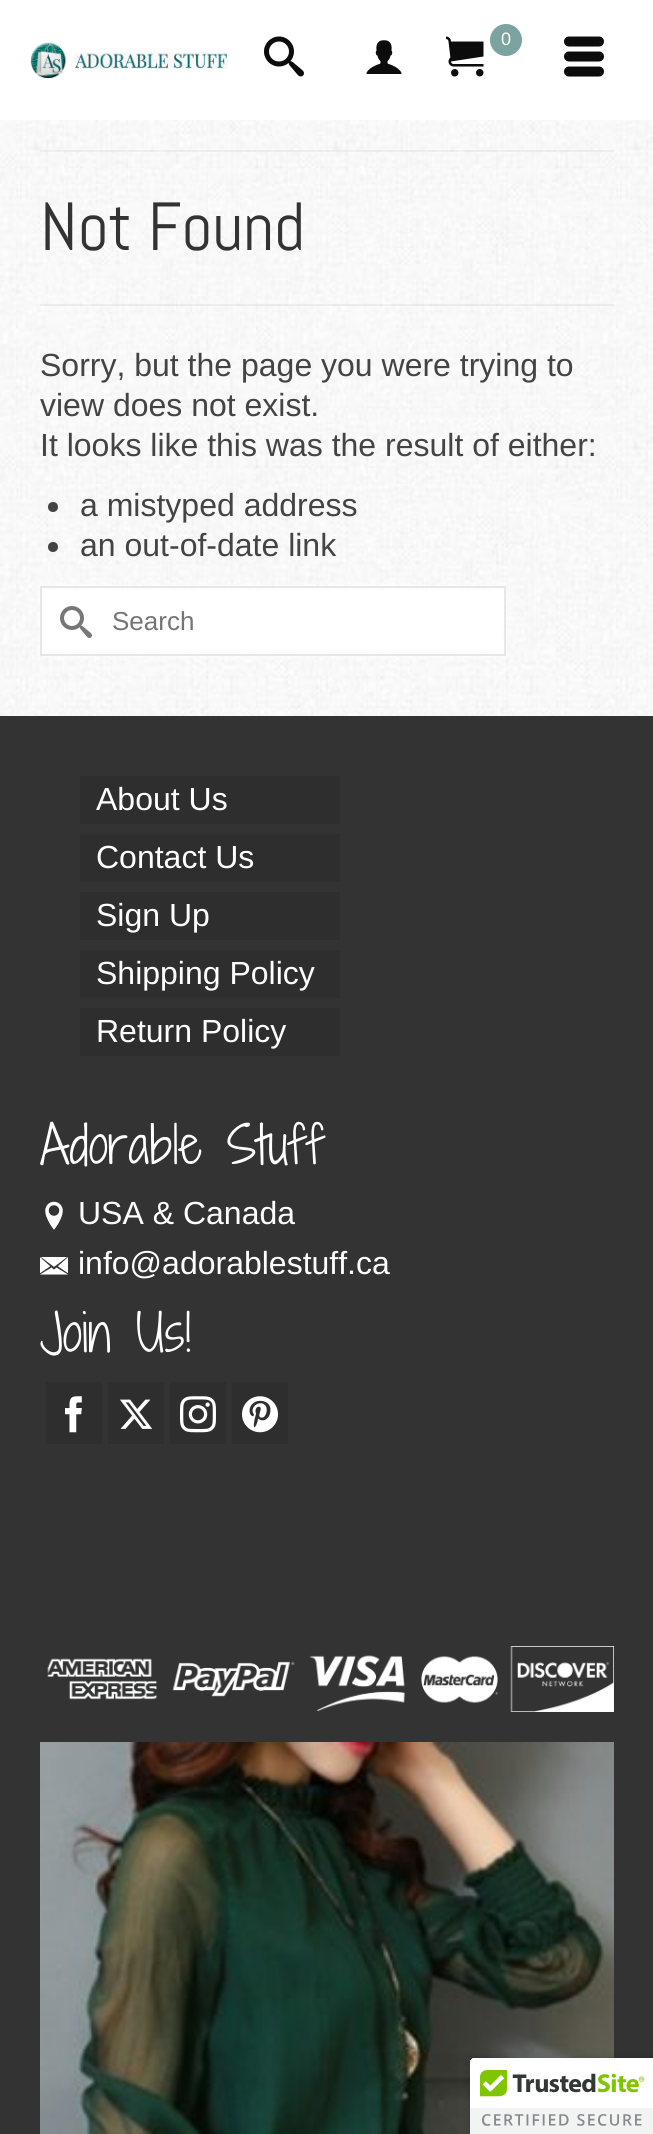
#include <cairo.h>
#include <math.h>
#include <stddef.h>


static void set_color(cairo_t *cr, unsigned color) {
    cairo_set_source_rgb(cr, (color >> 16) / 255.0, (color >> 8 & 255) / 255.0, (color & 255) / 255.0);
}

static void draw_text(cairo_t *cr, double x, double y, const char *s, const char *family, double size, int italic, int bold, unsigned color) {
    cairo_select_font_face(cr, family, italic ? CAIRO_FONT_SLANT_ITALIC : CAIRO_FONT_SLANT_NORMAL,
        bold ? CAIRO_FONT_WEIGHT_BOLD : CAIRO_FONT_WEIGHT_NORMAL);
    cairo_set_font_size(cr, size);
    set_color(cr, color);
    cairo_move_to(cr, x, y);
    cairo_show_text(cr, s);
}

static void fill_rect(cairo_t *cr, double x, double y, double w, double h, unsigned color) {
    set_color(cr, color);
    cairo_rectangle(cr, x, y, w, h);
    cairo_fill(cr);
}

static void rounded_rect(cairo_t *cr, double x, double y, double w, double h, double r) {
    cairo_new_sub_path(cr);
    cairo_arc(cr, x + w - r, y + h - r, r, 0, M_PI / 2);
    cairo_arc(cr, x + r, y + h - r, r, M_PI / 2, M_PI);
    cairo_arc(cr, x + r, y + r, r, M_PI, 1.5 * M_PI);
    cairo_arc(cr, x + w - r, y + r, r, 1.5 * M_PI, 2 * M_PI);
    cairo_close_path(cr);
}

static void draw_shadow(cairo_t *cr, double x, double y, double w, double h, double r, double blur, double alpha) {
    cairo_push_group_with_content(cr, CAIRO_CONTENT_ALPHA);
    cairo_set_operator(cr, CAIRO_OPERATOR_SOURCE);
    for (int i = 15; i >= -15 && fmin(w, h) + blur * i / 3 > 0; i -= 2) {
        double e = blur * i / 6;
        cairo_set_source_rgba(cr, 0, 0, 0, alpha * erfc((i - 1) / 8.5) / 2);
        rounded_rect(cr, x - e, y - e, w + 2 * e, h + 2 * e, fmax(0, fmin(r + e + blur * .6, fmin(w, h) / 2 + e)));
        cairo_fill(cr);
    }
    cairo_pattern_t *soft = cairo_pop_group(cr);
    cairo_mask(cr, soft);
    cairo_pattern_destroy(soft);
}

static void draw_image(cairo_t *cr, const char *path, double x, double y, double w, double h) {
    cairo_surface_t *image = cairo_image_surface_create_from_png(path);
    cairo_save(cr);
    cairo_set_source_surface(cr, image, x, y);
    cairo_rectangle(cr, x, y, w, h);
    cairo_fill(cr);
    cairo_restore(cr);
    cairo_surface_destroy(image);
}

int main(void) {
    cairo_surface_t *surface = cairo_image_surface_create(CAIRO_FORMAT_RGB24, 653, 2134);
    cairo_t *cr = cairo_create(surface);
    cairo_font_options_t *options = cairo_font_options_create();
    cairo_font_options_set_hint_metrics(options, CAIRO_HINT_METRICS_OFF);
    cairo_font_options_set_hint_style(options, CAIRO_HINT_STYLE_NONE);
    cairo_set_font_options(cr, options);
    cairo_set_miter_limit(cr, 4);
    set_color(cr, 0xFFFFFF);
    cairo_paint(cr);
    draw_image(cr, "assets/img1.png", 30, 42, 198, 37);
    draw_image(cr, "assets/img2.png", 264, 36, 40, 41);
    draw_image(cr, "assets/img3.png", 366, 40, 36, 34);
    draw_image(cr, "assets/img4.png", 446, 36, 38, 41);
    set_color(cr, 0x7BA39F);
    cairo_arc(cr, 506, 40, 16, 0, 2 * M_PI);
    cairo_fill(cr);
    draw_text(cr, 501, 45, "0", "Liberation Sans", 18, 0, 0, 0xFFFFFF);
    draw_image(cr, "assets/img5.png", 564, 36, 40, 41);
    draw_image(cr, "assets/img6.png", 0, 120, 653, 596);
    cairo_set_source_rgba(cr, 0, 0, 0, 0.05);
    cairo_rectangle(cr, 40, 150, 574, 2);
    cairo_fill(cr);
    cairo_rectangle(cr, 40, 304, 574, 2);
    cairo_fill(cr);
    draw_text(cr, 40, 250, "Not Found", "Abel", 68, 0, 0, 0x333333);
    draw_text(cr, 40, 376, "Sorry, but the page you were trying to", "Liberation Sans", 32, 0, 0, 0x444444);
    draw_text(cr, 40, 416, "view does not exist.", "Liberation Sans", 32, 0, 0, 0x444444);
    draw_text(cr, 40, 456, "It looks like this was the result of either:", "Liberation Sans", 32, 0, 0, 0x444444);
    cairo_new_path(cr);
    cairo_arc(cr, 53, 507, 5, 0, 2 * M_PI);
    cairo_fill(cr);
    draw_text(cr, 80, 516, "a mistyped address", "Liberation Sans", 32, 0, 0, 0x444444);
    cairo_new_path(cr);
    cairo_arc(cr, 53, 547, 5, 0, 2 * M_PI);
    cairo_fill(cr);
    draw_text(cr, 80, 556, "an out-of-date link", "Liberation Sans", 32, 0, 0, 0x444444);
    set_color(cr, 0xFFFFFF);
    draw_shadow(cr, 40, 586, 466, 70, 0, 3, 1);
    cairo_rectangle(cr, 41, 587, 464, 68);
    set_color(cr, 0xE7E7E7);
    cairo_stroke(cr);
    draw_image(cr, "assets/img7.png", 60, 606, 32, 32);
    draw_text(cr, 112, 630, "Search", "Liberation Sans", 26, 0, 0, 0x757575);
    fill_rect(cr, 0, 716, 653, 1418, 0x333333);
    fill_rect(cr, 80, 776, 260, 48, 0x2E2E2E);
    draw_text(cr, 96, 810, "About Us", "Liberation Sans", 32, 0, 0, 0xFFFFFF);
    fill_rect(cr, 80, 834, 260, 48, 0x2E2E2E);
    draw_text(cr, 96, 868, "Contact Us", "Liberation Sans", 32, 0, 0, 0xFFFFFF);
    fill_rect(cr, 80, 892, 260, 48, 0x2E2E2E);
    draw_text(cr, 96, 926, "Sign Up", "Liberation Sans", 32, 0, 0, 0xFFFFFF);
    fill_rect(cr, 80, 950, 260, 48, 0x2E2E2E);
    draw_text(cr, 96, 984, "Shipping Policy", "Liberation Sans", 32, 0, 0, 0xFFFFFF);
    fill_rect(cr, 80, 1008, 260, 48, 0x2E2E2E);
    draw_text(cr, 96, 1042, "Return Policy", "Liberation Sans", 32, 0, 0, 0xFFFFFF);
    draw_text(cr, 40, 1164, "Adorable Stuff", "Shadows Into Light Two Light", 50, 0, 0, 0xFFFFFF);
    draw_image(cr, "assets/img8.png", 45, 1201, 18, 29);
    draw_text(cr, 78, 1224, "USA & Canada", "Liberation Sans", 32, 0, 0, 0xFFFFFF);
    draw_image(cr, "assets/img9.png", 40, 1257, 28, 18);
    draw_text(cr, 78, 1274, "info@adorablestuff.ca", "Liberation Sans", 32, 0, 0, 0xFFFFFF);
    draw_text(cr, 40, 1352, "Join Us!", "Shadows Into Light Two Light", 50, 0, 0, 0xFFFFFF);
    fill_rect(cr, 46, 1382, 56, 62, 0x2E2E2E);
    draw_image(cr, "assets/img10.png", 65, 1396, 17, 37);
    fill_rect(cr, 108, 1382, 56, 62, 0x2E2E2E);
    draw_image(cr, "assets/img11.png", 120, 1399, 33, 30);
    fill_rect(cr, 170, 1382, 56, 62, 0x2E2E2E);
    draw_image(cr, "assets/img12.png", 180, 1396, 36, 37);
    fill_rect(cr, 232, 1382, 56, 62, 0x2E2E2E);
    draw_image(cr, "assets/img13.png", 242, 1396, 36, 37);
    draw_image(cr, "assets/img14.png", 47, 1646, 567, 66);
    draw_image(cr, "assets/img15.png", 40, 1742, 574, 392);
    set_color(cr, 0x000000);
    draw_shadow(cr, 470, 2058, 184, 76, 4, 5, 0.2);
    set_color(cr, 0xFFFFFF);
    cairo_new_path(cr);
    cairo_move_to(cr, 474, 2058);
    cairo_line_to(cr, 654, 2058);
    cairo_line_to(cr, 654, 2134);
    cairo_line_to(cr, 470, 2134);
    cairo_line_to(cr, 470, 2062);
    cairo_curve_to(cr, 470, 2060, 472, 2058, 474, 2058);
    cairo_close_path(cr);
    cairo_fill(cr);
    draw_image(cr, "assets/img16.png", 470, 2058, 183, 76);
    cairo_surface_write_to_png(surface, "output.png");
    cairo_font_options_destroy(options);
    cairo_destroy(cr);
    cairo_surface_destroy(surface);
    return 0;
}
